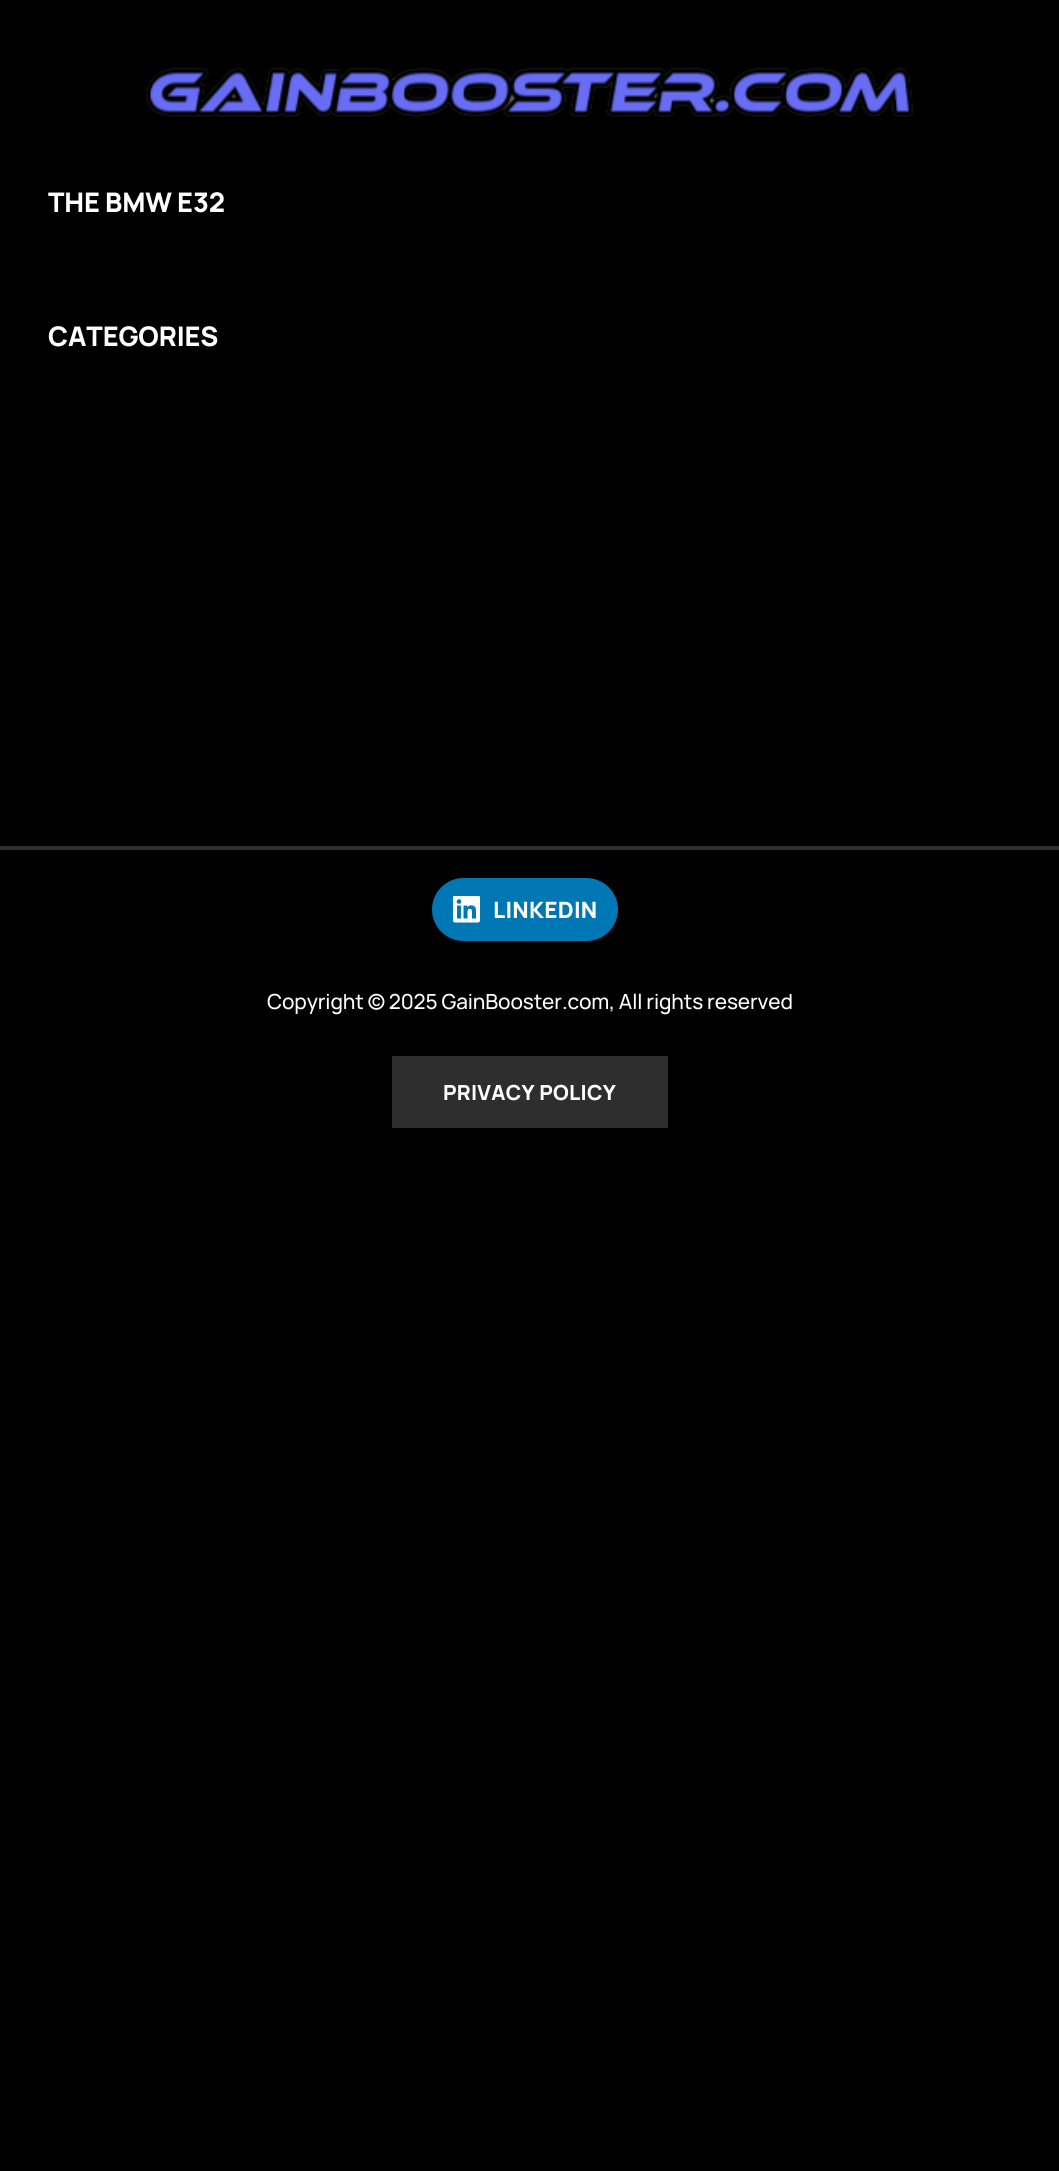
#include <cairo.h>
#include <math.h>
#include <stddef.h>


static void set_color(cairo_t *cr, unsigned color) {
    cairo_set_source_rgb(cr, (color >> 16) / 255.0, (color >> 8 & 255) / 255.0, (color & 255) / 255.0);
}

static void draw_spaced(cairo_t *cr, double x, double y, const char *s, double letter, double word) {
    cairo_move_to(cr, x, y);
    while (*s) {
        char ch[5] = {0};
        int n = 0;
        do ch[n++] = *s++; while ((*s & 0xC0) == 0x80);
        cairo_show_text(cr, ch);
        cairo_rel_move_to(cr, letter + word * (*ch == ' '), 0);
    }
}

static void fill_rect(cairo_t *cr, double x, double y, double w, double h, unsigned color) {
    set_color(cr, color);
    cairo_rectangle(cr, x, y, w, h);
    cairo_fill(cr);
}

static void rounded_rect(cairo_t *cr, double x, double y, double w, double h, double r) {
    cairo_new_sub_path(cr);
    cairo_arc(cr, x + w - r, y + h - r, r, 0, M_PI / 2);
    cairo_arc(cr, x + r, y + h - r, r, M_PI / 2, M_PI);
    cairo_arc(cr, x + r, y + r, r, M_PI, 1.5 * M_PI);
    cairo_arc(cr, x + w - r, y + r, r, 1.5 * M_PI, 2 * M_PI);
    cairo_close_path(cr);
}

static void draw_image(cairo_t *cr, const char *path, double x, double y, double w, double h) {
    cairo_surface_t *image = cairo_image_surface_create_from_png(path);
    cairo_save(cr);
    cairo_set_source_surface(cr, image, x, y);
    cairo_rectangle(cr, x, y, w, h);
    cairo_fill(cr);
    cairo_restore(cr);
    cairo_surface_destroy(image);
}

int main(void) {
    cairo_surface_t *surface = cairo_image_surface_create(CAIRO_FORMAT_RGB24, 1059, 2171);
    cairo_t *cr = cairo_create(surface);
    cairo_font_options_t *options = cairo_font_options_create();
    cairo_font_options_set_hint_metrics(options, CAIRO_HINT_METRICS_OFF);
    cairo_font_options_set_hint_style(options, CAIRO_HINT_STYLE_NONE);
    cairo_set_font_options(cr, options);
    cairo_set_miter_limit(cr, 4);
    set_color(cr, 0x000000);
    cairo_paint(cr);
    draw_image(cr, "assets/img1.png", 146, 67, 768, 50);
    cairo_select_font_face(cr, "Manrope ExtraBold", CAIRO_FONT_SLANT_NORMAL, CAIRO_FONT_WEIGHT_NORMAL);
    cairo_set_font_size(cr, 27);
    set_color(cr, 0xFFFFFF);
    draw_spaced(cr, 48, 212, "THE BMW E32", -0.13, 0);
    draw_spaced(cr, 48, 346, "CATEGORIES", -0.13, 0);
    fill_rect(cr, 0, 846, 1059, 4, 0x2E2E2E);
    set_color(cr, 0x0077B5);
    rounded_rect(cr, 432, 878, 186, 63, 31.5);
    cairo_fill(cr);
    draw_image(cr, "assets/img2.png", 453, 896, 27, 27);
    cairo_set_font_size(cr, 22.5);
    set_color(cr, 0xFFFFFF);
    draw_spaced(cr, 493, 918, "LINKEDIN", 0.25, 0);
    cairo_select_font_face(cr, "Manrope Medium", CAIRO_FONT_SLANT_NORMAL, CAIRO_FONT_WEIGHT_NORMAL);
    cairo_set_font_size(cr, 20.8);
    draw_spaced(cr, 267, 1009, "Copyright © 2025 GainBooster.com, All rights reserved", -0.13, 0);
    fill_rect(cr, 392, 1056, 276, 72, 0x2E2E2E);
    cairo_select_font_face(cr, "Manrope ExtraBold", CAIRO_FONT_SLANT_NORMAL, CAIRO_FONT_WEIGHT_NORMAL);
    set_color(cr, 0xFFFFFF);
    draw_spaced(cr, 443, 1100, "PRIVACY POLICY", 0.25, 0);
    cairo_surface_write_to_png(surface, "output.png");
    cairo_font_options_destroy(options);
    cairo_destroy(cr);
    cairo_surface_destroy(surface);
    return 0;
}
